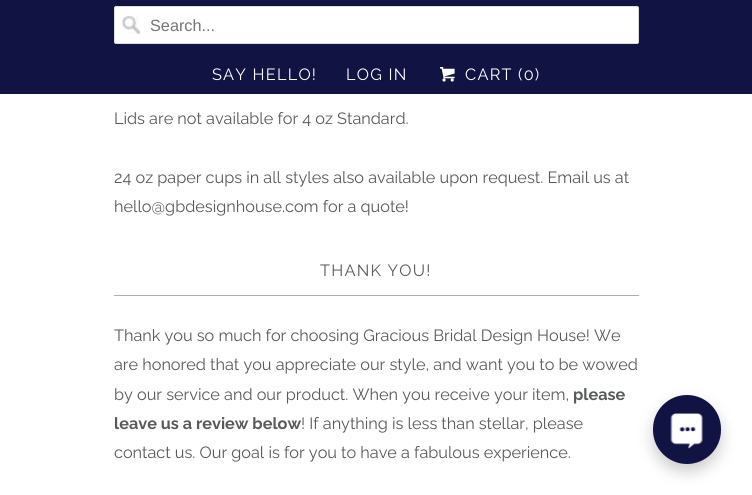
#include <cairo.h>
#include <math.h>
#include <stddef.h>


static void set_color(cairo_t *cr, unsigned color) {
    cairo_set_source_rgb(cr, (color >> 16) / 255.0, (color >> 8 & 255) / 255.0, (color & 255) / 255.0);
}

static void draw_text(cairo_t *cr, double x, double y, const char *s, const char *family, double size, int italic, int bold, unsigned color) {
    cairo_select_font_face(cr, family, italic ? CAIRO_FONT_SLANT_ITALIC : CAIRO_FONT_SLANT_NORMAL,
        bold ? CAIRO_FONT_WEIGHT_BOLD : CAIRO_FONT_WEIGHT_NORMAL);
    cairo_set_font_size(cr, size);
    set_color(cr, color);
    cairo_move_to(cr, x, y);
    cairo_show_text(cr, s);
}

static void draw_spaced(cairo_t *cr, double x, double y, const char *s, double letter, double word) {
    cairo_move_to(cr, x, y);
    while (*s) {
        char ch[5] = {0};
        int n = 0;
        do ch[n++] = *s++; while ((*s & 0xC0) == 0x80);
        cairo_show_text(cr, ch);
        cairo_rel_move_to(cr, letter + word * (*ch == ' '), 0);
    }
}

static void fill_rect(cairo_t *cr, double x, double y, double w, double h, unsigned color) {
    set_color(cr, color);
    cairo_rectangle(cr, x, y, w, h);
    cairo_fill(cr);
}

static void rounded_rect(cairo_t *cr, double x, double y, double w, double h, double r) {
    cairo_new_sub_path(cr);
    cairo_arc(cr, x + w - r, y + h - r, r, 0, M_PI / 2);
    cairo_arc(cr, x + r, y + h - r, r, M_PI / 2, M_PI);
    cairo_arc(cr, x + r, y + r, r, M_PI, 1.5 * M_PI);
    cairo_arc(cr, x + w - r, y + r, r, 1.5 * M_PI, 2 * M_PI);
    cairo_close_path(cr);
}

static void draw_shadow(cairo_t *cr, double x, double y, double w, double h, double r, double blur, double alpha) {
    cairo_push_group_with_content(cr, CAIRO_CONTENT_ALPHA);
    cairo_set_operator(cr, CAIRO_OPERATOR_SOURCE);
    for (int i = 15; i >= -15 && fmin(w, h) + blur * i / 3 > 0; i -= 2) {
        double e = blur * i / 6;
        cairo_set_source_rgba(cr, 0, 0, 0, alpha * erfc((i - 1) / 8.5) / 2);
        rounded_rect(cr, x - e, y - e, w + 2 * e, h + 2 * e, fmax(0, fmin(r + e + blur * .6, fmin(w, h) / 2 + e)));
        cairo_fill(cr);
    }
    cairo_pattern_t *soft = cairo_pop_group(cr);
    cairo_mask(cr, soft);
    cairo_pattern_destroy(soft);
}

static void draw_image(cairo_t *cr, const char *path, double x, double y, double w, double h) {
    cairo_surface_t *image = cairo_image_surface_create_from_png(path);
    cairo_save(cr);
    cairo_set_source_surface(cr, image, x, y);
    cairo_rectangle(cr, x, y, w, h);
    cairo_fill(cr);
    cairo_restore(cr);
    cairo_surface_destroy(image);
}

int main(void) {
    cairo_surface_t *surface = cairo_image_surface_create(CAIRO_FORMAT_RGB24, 752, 495);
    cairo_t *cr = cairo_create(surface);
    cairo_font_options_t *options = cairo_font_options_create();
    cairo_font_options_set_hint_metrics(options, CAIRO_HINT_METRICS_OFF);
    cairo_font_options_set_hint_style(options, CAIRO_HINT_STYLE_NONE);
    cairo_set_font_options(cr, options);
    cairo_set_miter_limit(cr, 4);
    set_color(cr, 0xFFFFFF);
    cairo_paint(cr);
    fill_rect(cr, 0, 0, 752, 94, 0x111342);
    set_color(cr, 0xFFFFFF);
    rounded_rect(cr, 114, 6, 525, 38, 2.5);
    cairo_fill(cr);
    draw_image(cr, "assets/img1.png", 122, 16, 18, 18);
    rounded_rect(cr, 114.5, 6.5, 524, 37, 2);
    set_color(cr, 0xDFDFDF);
    cairo_set_line_width(cr, 1);
    cairo_stroke(cr);
    draw_text(cr, 150, 31, "Search...", "Liberation Sans", 16.25, 0, 0, 0x757575);
    cairo_select_font_face(cr, "Raleway", CAIRO_FONT_SLANT_NORMAL, CAIRO_FONT_WEIGHT_NORMAL);
    set_color(cr, 0xFFFFFF);
    draw_spaced(cr, 212, 80, "SAY HELLO!", 1.25, 0);
    draw_spaced(cr, 346, 80, "LOG IN", 1.25, 0);
    draw_image(cr, "assets/img2.png", 440, 67, 15, 15);
    draw_spaced(cr, 465, 80, "CART (0)", 1.25, 0);
    draw_text(cr, 114, 124, "Lids are not available for 4 oz Standard.", "Raleway", 16.25, 0, 0, 0x58595B);
    draw_text(cr, 114, 183, "24 oz paper cups in all styles also available upon request. Email us at", "Raleway", 16.25, 0, 0, 0x58595B);
    draw_text(cr, 114, 212, "hello@gbdesignhouse.com for a quote!", "Raleway", 16.25, 0, 0, 0x58595B);
    fill_rect(cr, 114, 295, 525, 1, 0xAEAEB0);
    set_color(cr, 0x58595B);
    draw_spaced(cr, 320, 276, "THANK YOU!", 1.25, 0);
    draw_text(cr, 114, 341, "Thank you so much for choosing Gracious Bridal Design House! We", "Raleway", 16.25, 0, 0, 0x58595B);
    draw_text(cr, 114, 370, "are honored that you appreciate our style, and want you to be wowed", "Raleway", 16.25, 0, 0, 0x58595B);
    draw_text(cr, 114, 400, "by our service and our product. When you receive your item,", "Raleway", 16.25, 0, 0, 0x58595B);
    draw_text(cr, 573, 400, "please", "Raleway", 16.25, 0, 1, 0x58595B);
    draw_text(cr, 114, 429, "leave us a review below", "Raleway", 16.25, 0, 1, 0x58595B);
    draw_text(cr, 301, 429, "! If anything is less than stellar, please", "Raleway", 16.25, 0, 0, 0x58595B);
    draw_text(cr, 114, 458, "contact us. Our goal is for you to have a fabulous experience.", "Raleway", 16.25, 0, 0, 0x58595B);
    set_color(cr, 0x000000);
    draw_shadow(cr, 653, 403, 68, 68, 34, 7.5, 0.2);
    set_color(cr, 0x111342);
    rounded_rect(cr, 653, 395, 68, 69, 34);
    cairo_fill(cr);
    draw_image(cr, "assets/img3.png", 670, 413, 33, 36);
    cairo_surface_write_to_png(surface, "output.png");
    cairo_font_options_destroy(options);
    cairo_destroy(cr);
    cairo_surface_destroy(surface);
    return 0;
}
